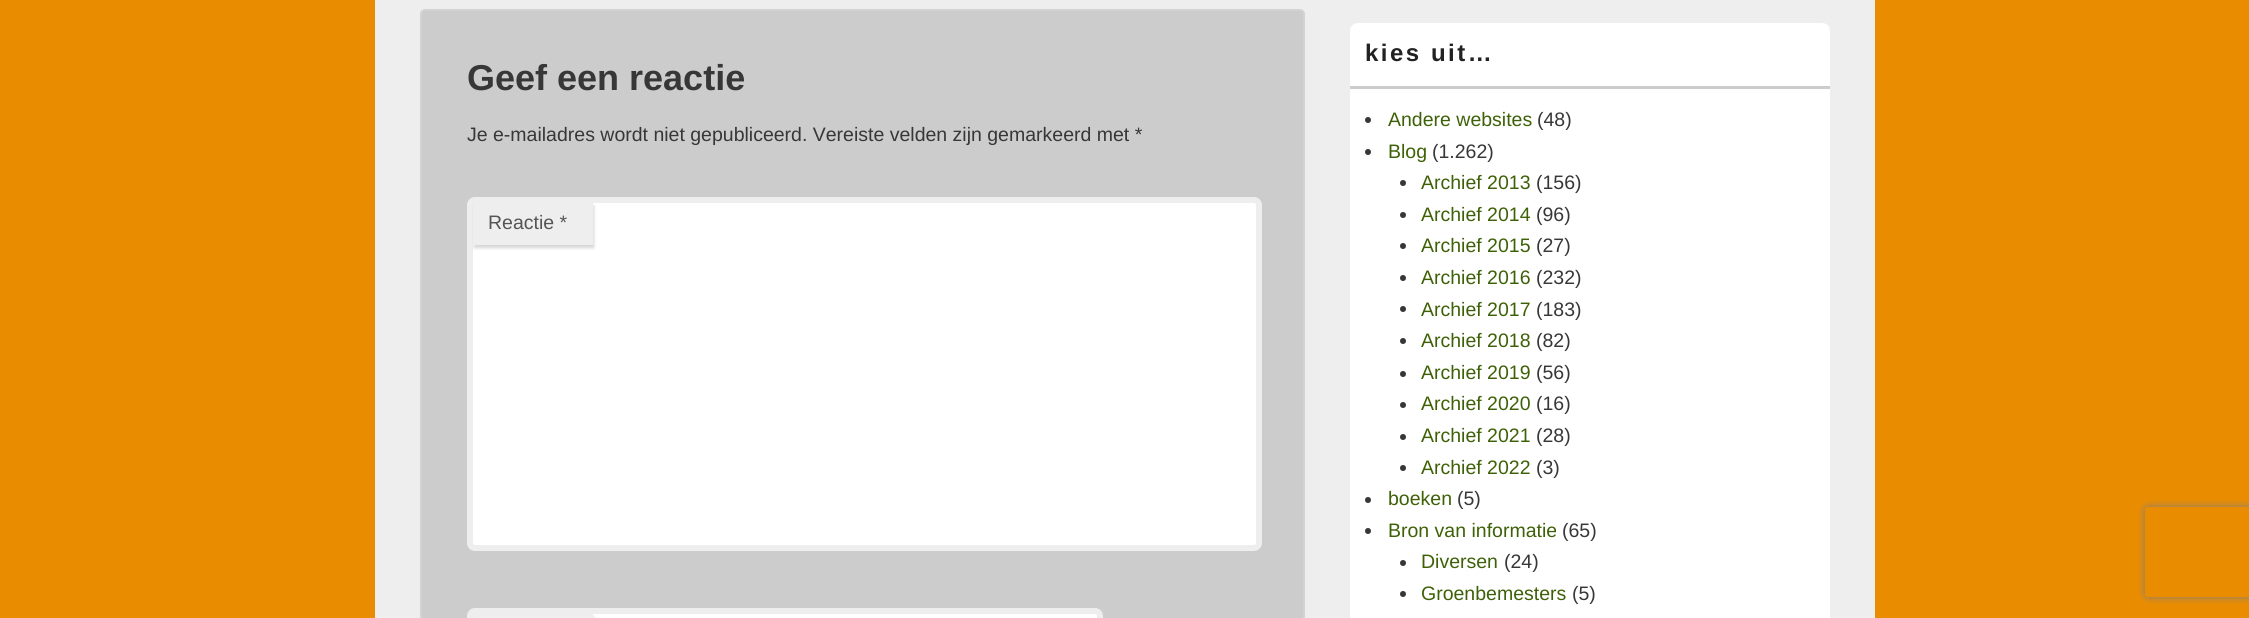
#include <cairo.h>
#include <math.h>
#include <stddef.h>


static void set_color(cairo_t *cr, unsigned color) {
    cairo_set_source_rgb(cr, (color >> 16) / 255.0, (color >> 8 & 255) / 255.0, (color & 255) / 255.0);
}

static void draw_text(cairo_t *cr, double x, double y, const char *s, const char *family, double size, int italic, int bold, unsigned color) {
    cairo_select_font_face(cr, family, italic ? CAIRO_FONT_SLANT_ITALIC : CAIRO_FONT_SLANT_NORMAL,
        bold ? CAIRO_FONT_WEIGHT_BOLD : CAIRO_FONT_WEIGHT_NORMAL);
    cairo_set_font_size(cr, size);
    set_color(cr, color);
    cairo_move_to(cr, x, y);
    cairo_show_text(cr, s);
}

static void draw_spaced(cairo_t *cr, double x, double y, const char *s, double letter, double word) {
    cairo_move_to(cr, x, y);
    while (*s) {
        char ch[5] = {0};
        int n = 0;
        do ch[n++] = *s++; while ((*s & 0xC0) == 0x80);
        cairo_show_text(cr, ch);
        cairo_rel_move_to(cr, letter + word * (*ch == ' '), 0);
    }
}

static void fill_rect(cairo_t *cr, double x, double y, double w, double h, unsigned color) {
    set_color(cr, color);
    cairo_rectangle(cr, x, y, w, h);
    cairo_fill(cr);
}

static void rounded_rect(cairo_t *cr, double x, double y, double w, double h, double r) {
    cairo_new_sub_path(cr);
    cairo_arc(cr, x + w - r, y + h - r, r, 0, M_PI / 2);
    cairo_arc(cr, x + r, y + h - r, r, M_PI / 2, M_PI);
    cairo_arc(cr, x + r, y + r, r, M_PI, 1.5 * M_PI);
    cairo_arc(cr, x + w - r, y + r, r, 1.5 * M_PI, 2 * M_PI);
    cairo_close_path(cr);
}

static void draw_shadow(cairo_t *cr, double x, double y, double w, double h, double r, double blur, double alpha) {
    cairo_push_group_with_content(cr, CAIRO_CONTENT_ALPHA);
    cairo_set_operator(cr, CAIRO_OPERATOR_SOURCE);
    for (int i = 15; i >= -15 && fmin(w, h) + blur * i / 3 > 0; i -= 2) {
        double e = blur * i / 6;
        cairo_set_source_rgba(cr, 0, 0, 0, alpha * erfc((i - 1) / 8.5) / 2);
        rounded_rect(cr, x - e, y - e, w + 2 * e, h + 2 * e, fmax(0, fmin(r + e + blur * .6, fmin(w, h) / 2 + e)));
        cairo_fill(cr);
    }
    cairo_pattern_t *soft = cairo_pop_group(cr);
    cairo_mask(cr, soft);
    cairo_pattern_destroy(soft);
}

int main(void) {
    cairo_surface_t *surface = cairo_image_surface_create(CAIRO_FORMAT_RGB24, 2249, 618);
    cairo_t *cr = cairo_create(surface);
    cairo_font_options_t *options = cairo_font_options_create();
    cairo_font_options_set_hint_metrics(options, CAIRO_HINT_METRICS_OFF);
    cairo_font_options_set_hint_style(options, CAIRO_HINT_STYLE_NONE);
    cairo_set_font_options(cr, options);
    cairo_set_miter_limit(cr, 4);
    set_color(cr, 0xEA8C00);
    cairo_paint(cr);
    fill_rect(cr, 375, 0, 1500, 618, 0xEEEEEE);
    set_color(cr, 0xCCCCCC);
    rounded_rect(cr, 421, 10, 883, 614, 4);
    cairo_fill_preserve(cr);
    set_color(cr, 0xD3D3D3);
    cairo_stroke(cr);
    draw_text(cr, 467, 90, "Geef een reactie", "Liberation Sans", 36, 0, 1, 0x373737);
    draw_text(cr, 467, 141, "Je e-mailadres wordt niet gepubliceerd. Vereiste velden zijn gemarkeerd met *", "Liberation Sans", 19.5, 0, 0, 0x373737);
    set_color(cr, 0xFFFFFF);
    rounded_rect(cr, 470, 200, 789, 348, 5);
    cairo_fill_preserve(cr);
    set_color(cr, 0xEEEEEE);
    cairo_set_line_width(cr, 6);
    cairo_stroke(cr);
    set_color(cr, 0xCCCCCC);
    draw_shadow(cr, 474, 206, 120, 42, 0, 1.5, 0.8);
    fill_rect(cr, 473, 203, 120, 42, 0xEEEEEE);
    draw_text(cr, 488, 229, "Reactie *", "Liberation Sans", 19.5, 0, 0, 0x555555);
    set_color(cr, 0xFFFFFF);
    rounded_rect(cr, 470, 611, 630, 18, 5);
    cairo_fill_preserve(cr);
    set_color(cr, 0xEEEEEE);
    cairo_stroke(cr);
    set_color(cr, 0xCCCCCC);
    draw_shadow(cr, 474, 617, 120, 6, 0, 1.5, 0.8);
    fill_rect(cr, 473, 614, 120, 4, 0xEEEEEE);
    set_color(cr, 0xFFFFFF);
    rounded_rect(cr, 1350, 23, 480, 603, 8);
    cairo_fill(cr);
    fill_rect(cr, 1350, 86, 480, 3, 0xCCCCCC);
    cairo_select_font_face(cr, "Liberation Sans", CAIRO_FONT_SLANT_NORMAL, CAIRO_FONT_WEIGHT_BOLD);
    cairo_set_font_size(cr, 24);
    set_color(cr, 0x222222);
    draw_spaced(cr, 1365, 61, "kies uit…", 2.5, 0);
    set_color(cr, 0x373737);
    cairo_new_path(cr);
    cairo_arc(cr, 1368, 120, 3, 0, 2 * M_PI);
    cairo_fill(cr);
    draw_text(cr, 1388, 126, "Andere websites", "Liberation Sans", 19.5, 0, 0, 0x3E6107);
    draw_text(cr, 1537, 126, "(48)", "Liberation Sans", 19.5, 0, 0, 0x373737);
    cairo_new_path(cr);
    cairo_arc(cr, 1368, 152, 3, 0, 2 * M_PI);
    cairo_fill(cr);
    draw_text(cr, 1388, 158, "Blog", "Liberation Sans", 19.5, 0, 0, 0x3E6107);
    draw_text(cr, 1432, 158, "(1.262)", "Liberation Sans", 19.5, 0, 0, 0x373737);
    cairo_new_path(cr);
    cairo_arc(cr, 1403, 183, 3, 0, 2 * M_PI);
    cairo_fill(cr);
    draw_text(cr, 1421, 189, "Archief 2013", "Liberation Sans", 19.5, 0, 0, 0x3E6107);
    draw_text(cr, 1536, 189, "(156)", "Liberation Sans", 19.5, 0, 0, 0x373737);
    cairo_new_path(cr);
    cairo_arc(cr, 1403, 215, 3, 0, 2 * M_PI);
    cairo_fill(cr);
    draw_text(cr, 1421, 221, "Archief 2014", "Liberation Sans", 19.5, 0, 0, 0x3E6107);
    draw_text(cr, 1536, 221, "(96)", "Liberation Sans", 19.5, 0, 0, 0x373737);
    cairo_new_path(cr);
    cairo_arc(cr, 1403, 246, 3, 0, 2 * M_PI);
    cairo_fill(cr);
    draw_text(cr, 1421, 252, "Archief 2015", "Liberation Sans", 19.5, 0, 0, 0x3E6107);
    draw_text(cr, 1536, 252, "(27)", "Liberation Sans", 19.5, 0, 0, 0x373737);
    cairo_new_path(cr);
    cairo_arc(cr, 1403, 278, 3, 0, 2 * M_PI);
    cairo_fill(cr);
    draw_text(cr, 1421, 284, "Archief 2016", "Liberation Sans", 19.5, 0, 0, 0x3E6107);
    draw_text(cr, 1536, 284, "(232)", "Liberation Sans", 19.5, 0, 0, 0x373737);
    cairo_new_path(cr);
    cairo_arc(cr, 1403, 309, 3, 0, 2 * M_PI);
    cairo_fill(cr);
    draw_text(cr, 1421, 316, "Archief 2017", "Liberation Sans", 19.5, 0, 0, 0x3E6107);
    draw_text(cr, 1536, 316, "(183)", "Liberation Sans", 19.5, 0, 0, 0x373737);
    cairo_new_path(cr);
    cairo_arc(cr, 1403, 341, 3, 0, 2 * M_PI);
    cairo_fill(cr);
    draw_text(cr, 1421, 347, "Archief 2018", "Liberation Sans", 19.5, 0, 0, 0x3E6107);
    draw_text(cr, 1536, 347, "(82)", "Liberation Sans", 19.5, 0, 0, 0x373737);
    cairo_new_path(cr);
    cairo_arc(cr, 1403, 374, 3, 0, 2 * M_PI);
    cairo_fill(cr);
    draw_text(cr, 1421, 379, "Archief 2019", "Liberation Sans", 19.5, 0, 0, 0x3E6107);
    draw_text(cr, 1536, 379, "(56)", "Liberation Sans", 19.5, 0, 0, 0x373737);
    cairo_new_path(cr);
    cairo_arc(cr, 1403, 405, 3, 0, 2 * M_PI);
    cairo_fill(cr);
    draw_text(cr, 1421, 410, "Archief 2020", "Liberation Sans", 19.5, 0, 0, 0x3E6107);
    draw_text(cr, 1536, 410, "(16)", "Liberation Sans", 19.5, 0, 0, 0x373737);
    cairo_new_path(cr);
    cairo_arc(cr, 1403, 437, 3, 0, 2 * M_PI);
    cairo_fill(cr);
    draw_text(cr, 1421, 442, "Archief 2021", "Liberation Sans", 19.5, 0, 0, 0x3E6107);
    draw_text(cr, 1536, 442, "(28)", "Liberation Sans", 19.5, 0, 0, 0x373737);
    cairo_new_path(cr);
    cairo_arc(cr, 1403, 468, 3, 0, 2 * M_PI);
    cairo_fill(cr);
    draw_text(cr, 1421, 474, "Archief 2022", "Liberation Sans", 19.5, 0, 0, 0x3E6107);
    draw_text(cr, 1536, 474, "(3)", "Liberation Sans", 19.5, 0, 0, 0x373737);
    cairo_new_path(cr);
    cairo_arc(cr, 1368, 500, 3, 0, 2 * M_PI);
    cairo_fill(cr);
    draw_text(cr, 1388, 505, "boeken", "Liberation Sans", 19.5, 0, 0, 0x3E6107);
    draw_text(cr, 1457, 505, "(5)", "Liberation Sans", 19.5, 0, 0, 0x373737);
    cairo_new_path(cr);
    cairo_arc(cr, 1368, 531, 3, 0, 2 * M_PI);
    cairo_fill(cr);
    draw_text(cr, 1388, 537, "Bron van informatie", "Liberation Sans", 19.5, 0, 0, 0x3E6107);
    draw_text(cr, 1562, 537, "(65)", "Liberation Sans", 19.5, 0, 0, 0x373737);
    cairo_new_path(cr);
    cairo_arc(cr, 1403, 563, 3, 0, 2 * M_PI);
    cairo_fill(cr);
    draw_text(cr, 1421, 568, "Diversen", "Liberation Sans", 19.5, 0, 0, 0x3E6107);
    draw_text(cr, 1504, 568, "(24)", "Liberation Sans", 19.5, 0, 0, 0x373737);
    cairo_new_path(cr);
    cairo_arc(cr, 1403, 594, 3, 0, 2 * M_PI);
    cairo_fill(cr);
    draw_text(cr, 1421, 600, "Groenbemesters", "Liberation Sans", 19.5, 0, 0, 0x3E6107);
    draw_text(cr, 1572, 600, "(5)", "Liberation Sans", 19.5, 0, 0, 0x373737);
    cairo_save(cr);
    cairo_set_fill_rule(cr, CAIRO_FILL_RULE_EVEN_ODD);
    cairo_new_path(cr);
    cairo_move_to(cr, 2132, 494);
    cairo_line_to(cr, 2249, 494);
    cairo_line_to(cr, 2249, 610);
    cairo_line_to(cr, 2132, 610);
    cairo_close_path(cr);
    cairo_move_to(cr, 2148, 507);
    cairo_line_to(cr, 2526, 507);
    cairo_curve_to(cr, 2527.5, 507, 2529, 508.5, 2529, 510);
    cairo_line_to(cr, 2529, 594);
    cairo_curve_to(cr, 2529, 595.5, 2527.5, 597, 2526, 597);
    cairo_line_to(cr, 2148, 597);
    cairo_curve_to(cr, 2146.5, 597, 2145, 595.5, 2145, 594);
    cairo_line_to(cr, 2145, 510);
    cairo_curve_to(cr, 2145, 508.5, 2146.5, 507, 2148, 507);
    cairo_close_path(cr);
    cairo_clip(cr);
    set_color(cr, 0x808080);
    draw_shadow(cr, 2145, 507, 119, 90, 3, 4, 1);
    cairo_restore(cr);
    cairo_surface_write_to_png(surface, "output.png");
    cairo_font_options_destroy(options);
    cairo_destroy(cr);
    cairo_surface_destroy(surface);
    return 0;
}
